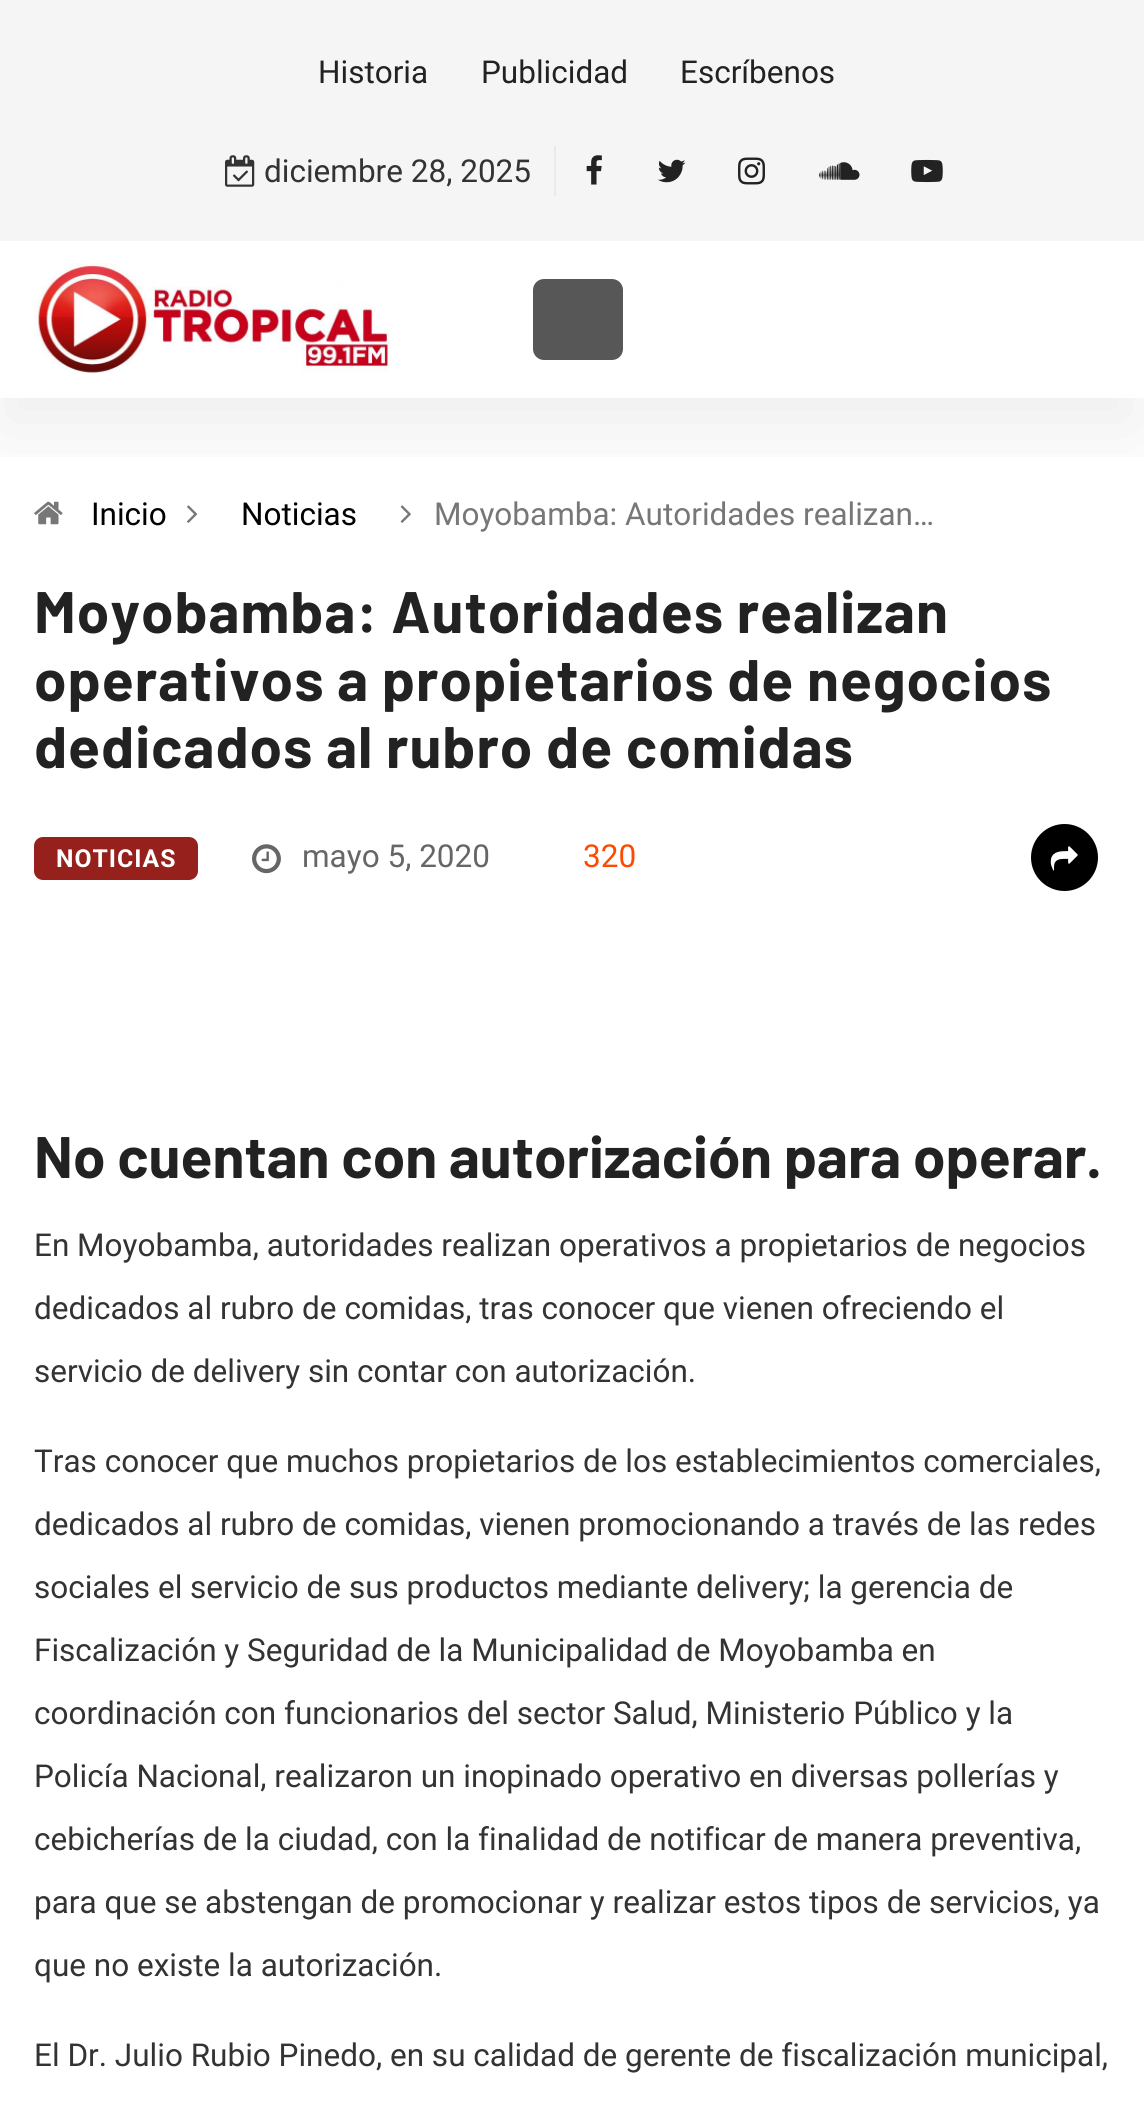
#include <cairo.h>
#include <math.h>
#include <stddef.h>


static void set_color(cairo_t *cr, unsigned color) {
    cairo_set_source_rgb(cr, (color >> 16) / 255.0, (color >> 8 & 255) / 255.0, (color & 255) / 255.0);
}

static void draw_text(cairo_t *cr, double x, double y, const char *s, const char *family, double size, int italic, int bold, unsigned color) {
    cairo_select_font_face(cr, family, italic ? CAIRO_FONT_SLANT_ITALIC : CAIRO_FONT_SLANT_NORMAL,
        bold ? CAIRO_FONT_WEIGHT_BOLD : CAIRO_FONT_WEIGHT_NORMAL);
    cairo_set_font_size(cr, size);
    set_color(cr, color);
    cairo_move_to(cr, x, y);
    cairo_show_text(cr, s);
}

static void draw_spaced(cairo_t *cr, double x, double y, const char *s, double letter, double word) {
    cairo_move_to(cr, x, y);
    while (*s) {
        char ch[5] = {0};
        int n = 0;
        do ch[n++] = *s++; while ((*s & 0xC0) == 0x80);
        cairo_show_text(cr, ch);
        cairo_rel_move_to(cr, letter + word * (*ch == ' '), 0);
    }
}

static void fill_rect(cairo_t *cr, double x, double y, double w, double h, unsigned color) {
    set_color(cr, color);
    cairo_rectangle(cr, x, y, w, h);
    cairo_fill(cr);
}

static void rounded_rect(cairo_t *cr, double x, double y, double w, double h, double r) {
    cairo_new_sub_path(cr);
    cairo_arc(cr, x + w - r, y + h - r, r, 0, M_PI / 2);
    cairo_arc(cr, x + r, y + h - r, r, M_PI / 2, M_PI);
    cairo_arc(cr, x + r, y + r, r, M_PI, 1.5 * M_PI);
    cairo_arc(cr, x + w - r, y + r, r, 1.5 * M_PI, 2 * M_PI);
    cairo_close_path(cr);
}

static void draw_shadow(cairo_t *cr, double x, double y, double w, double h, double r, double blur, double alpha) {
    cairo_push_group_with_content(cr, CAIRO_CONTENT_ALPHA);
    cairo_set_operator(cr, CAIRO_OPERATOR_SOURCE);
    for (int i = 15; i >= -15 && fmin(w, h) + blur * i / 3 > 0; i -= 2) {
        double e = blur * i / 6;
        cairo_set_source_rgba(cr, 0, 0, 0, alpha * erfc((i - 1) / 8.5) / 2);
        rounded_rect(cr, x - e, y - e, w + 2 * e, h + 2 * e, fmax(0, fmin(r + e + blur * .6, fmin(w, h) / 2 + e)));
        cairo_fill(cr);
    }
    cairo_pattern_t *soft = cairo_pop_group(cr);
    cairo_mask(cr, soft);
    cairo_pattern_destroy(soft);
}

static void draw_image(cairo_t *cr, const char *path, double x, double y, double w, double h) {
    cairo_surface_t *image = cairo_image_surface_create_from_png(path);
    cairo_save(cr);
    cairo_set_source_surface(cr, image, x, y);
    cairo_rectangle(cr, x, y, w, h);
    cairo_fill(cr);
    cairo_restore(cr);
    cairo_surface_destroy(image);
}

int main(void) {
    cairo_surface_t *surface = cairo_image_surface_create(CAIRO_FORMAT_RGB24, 1144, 2103);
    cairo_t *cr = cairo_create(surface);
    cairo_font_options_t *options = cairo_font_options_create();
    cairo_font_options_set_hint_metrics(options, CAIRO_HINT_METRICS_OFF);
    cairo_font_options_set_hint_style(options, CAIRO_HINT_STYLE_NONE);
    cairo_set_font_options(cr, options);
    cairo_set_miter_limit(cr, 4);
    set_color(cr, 0xFFFFFF);
    cairo_paint(cr);
    fill_rect(cr, 0, 0, 1144, 241, 0xF5F5F5);
    draw_text(cr, 318, 83, "Historia", "Roboto", 31.5, 0, 0, 0x222222);
    draw_text(cr, 481, 83, "Publicidad", "Roboto", 31.5, 0, 0, 0x222222);
    draw_text(cr, 680, 83, "Escríbenos", "Roboto", 31.5, 0, 0, 0x222222);
    cairo_save(cr);
    cairo_rectangle(cr, 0, 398, 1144, 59);
    cairo_clip(cr);
    set_color(cr, 0x000000);
    draw_shadow(cr, -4, 275, 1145, 157, 0, 45, 0.07);
    cairo_restore(cr);
    fill_rect(cr, 554, 146, 2, 50, 0xEAEAEA);
    draw_image(cr, "assets/img1.png", 225, 155, 30, 32);
    draw_text(cr, 264, 182, "diciembre 28, 2025", "Roboto", 31.5, 0, 0, 0x333333);
    draw_image(cr, "assets/img2.png", 586, 155, 16, 30);
    draw_image(cr, "assets/img3.png", 658, 159, 28, 24);
    draw_image(cr, "assets/img4.png", 738, 157, 27, 28);
    draw_image(cr, "assets/img5.png", 819, 162, 41, 18);
    draw_image(cr, "assets/img6.png", 911, 159, 32, 24);
    draw_image(cr, "assets/img7.png", 34, 263, 355, 110);
    set_color(cr, 0x575757);
    rounded_rect(cr, 533, 279, 90, 81, 11);
    cairo_fill(cr);
    draw_image(cr, "assets/img8.png", 34, 501, 29, 24);
    draw_text(cr, 91, 525, "Inicio", "Roboto", 31.5, 0, 0, 0x000000);
    draw_image(cr, "assets/img9.png", 187, 505, 11, 18);
    draw_text(cr, 241, 525, "Noticias", "Roboto", 31.5, 0, 0, 0x000000);
    draw_image(cr, "assets/img10.png", 400, 505, 11, 18);
    draw_text(cr, 434, 525, "Moyobamba: Autoridades realizan…", "Roboto", 31.5, 0, 0, 0x777777);
    cairo_select_font_face(cr, "Barlow", CAIRO_FONT_SLANT_NORMAL, CAIRO_FONT_WEIGHT_BOLD);
    cairo_set_font_size(cr, 58.5);
    set_color(cr, 0x222222);
    draw_spaced(cr, 34, 633, "Moyobamba: Autoridades realizan", 1, 0);
    draw_spaced(cr, 34, 701, "operativos a propietarios de negocios", 1, 0);
    draw_spaced(cr, 34, 768, "dedicados al rubro de comidas", 1, 0);
    set_color(cr, 0x95201C);
    rounded_rect(cr, 34, 837, 164, 43, 9);
    cairo_fill(cr);
    cairo_select_font_face(cr, "Roboto", CAIRO_FONT_SLANT_NORMAL, CAIRO_FONT_WEIGHT_BOLD);
    cairo_set_font_size(cr, 24.75);
    set_color(cr, 0xFFFFFF);
    draw_spaced(cr, 56, 867, "NOTICIAS", 1, 0);
    draw_image(cr, "assets/img11.png", 252, 844, 29, 30);
    draw_text(cr, 302, 867, "mayo 5, 2020", "Roboto", 31.5, 0, 0, 0x666666);
    draw_text(cr, 583, 867, "320", "Roboto", 31.5, 0, 0, 0xFC4A00);
    set_color(cr, 0x000000);
    cairo_new_path(cr);
    cairo_arc(cr, 1064.5, 857.5, 33.5, 0, 2 * M_PI);
    cairo_fill(cr);
    draw_image(cr, "assets/img12.png", 1050, 846, 28, 25);
    draw_text(cr, 34, 1178, "No cuentan con autorización para operar.", "Barlow", 58.5, 0, 1, 0x222222);
    draw_text(cr, 34, 1256, "En Moyobamba, autoridades realizan operativos a propietarios de negocios", "Roboto", 31.5, 0, 0, 0x333333);
    draw_text(cr, 34, 1319, "dedicados al rubro de comidas, tras conocer que vienen ofreciendo el", "Roboto", 31.5, 0, 0, 0x333333);
    draw_text(cr, 34, 1382, "servicio de delivery sin contar con autorización.", "Roboto", 31.5, 0, 0, 0x333333);
    draw_text(cr, 34, 1472, "Tras conocer que muchos propietarios de los establecimientos comerciales,", "Roboto", 31.5, 0, 0, 0x333333);
    draw_text(cr, 34, 1535, "dedicados al rubro de comidas, vienen promocionando a través de las redes", "Roboto", 31.5, 0, 0, 0x333333);
    draw_text(cr, 34, 1598, "sociales el servicio de sus productos mediante delivery; la gerencia de", "Roboto", 31.5, 0, 0, 0x333333);
    draw_text(cr, 34, 1661, "Fiscalización y Seguridad de la Municipalidad de Moyobamba en", "Roboto", 31.5, 0, 0, 0x333333);
    draw_text(cr, 34, 1724, "coordinación con funcionarios del sector Salud, Ministerio Público y la", "Roboto", 31.5, 0, 0, 0x333333);
    draw_text(cr, 34, 1787, "Policía Nacional, realizaron un inopinado operativo en diversas pollerías y", "Roboto", 31.5, 0, 0, 0x333333);
    draw_text(cr, 34, 1850, "cebicherías de la ciudad, con la finalidad de notificar de manera preventiva,", "Roboto", 31.5, 0, 0, 0x333333);
    draw_text(cr, 34, 1913, "para que se abstengan de promocionar y realizar estos tipos de servicios, ya", "Roboto", 31.5, 0, 0, 0x333333);
    draw_text(cr, 34, 1976, "que no existe la autorización.", "Roboto", 31.5, 0, 0, 0x333333);
    draw_text(cr, 34, 2066, "El Dr. Julio Rubio Pinedo, en su calidad de gerente de fiscalización municipal,", "Roboto", 31.5, 0, 0, 0x333333);
    cairo_surface_write_to_png(surface, "output.png");
    cairo_font_options_destroy(options);
    cairo_destroy(cr);
    cairo_surface_destroy(surface);
    return 0;
}
